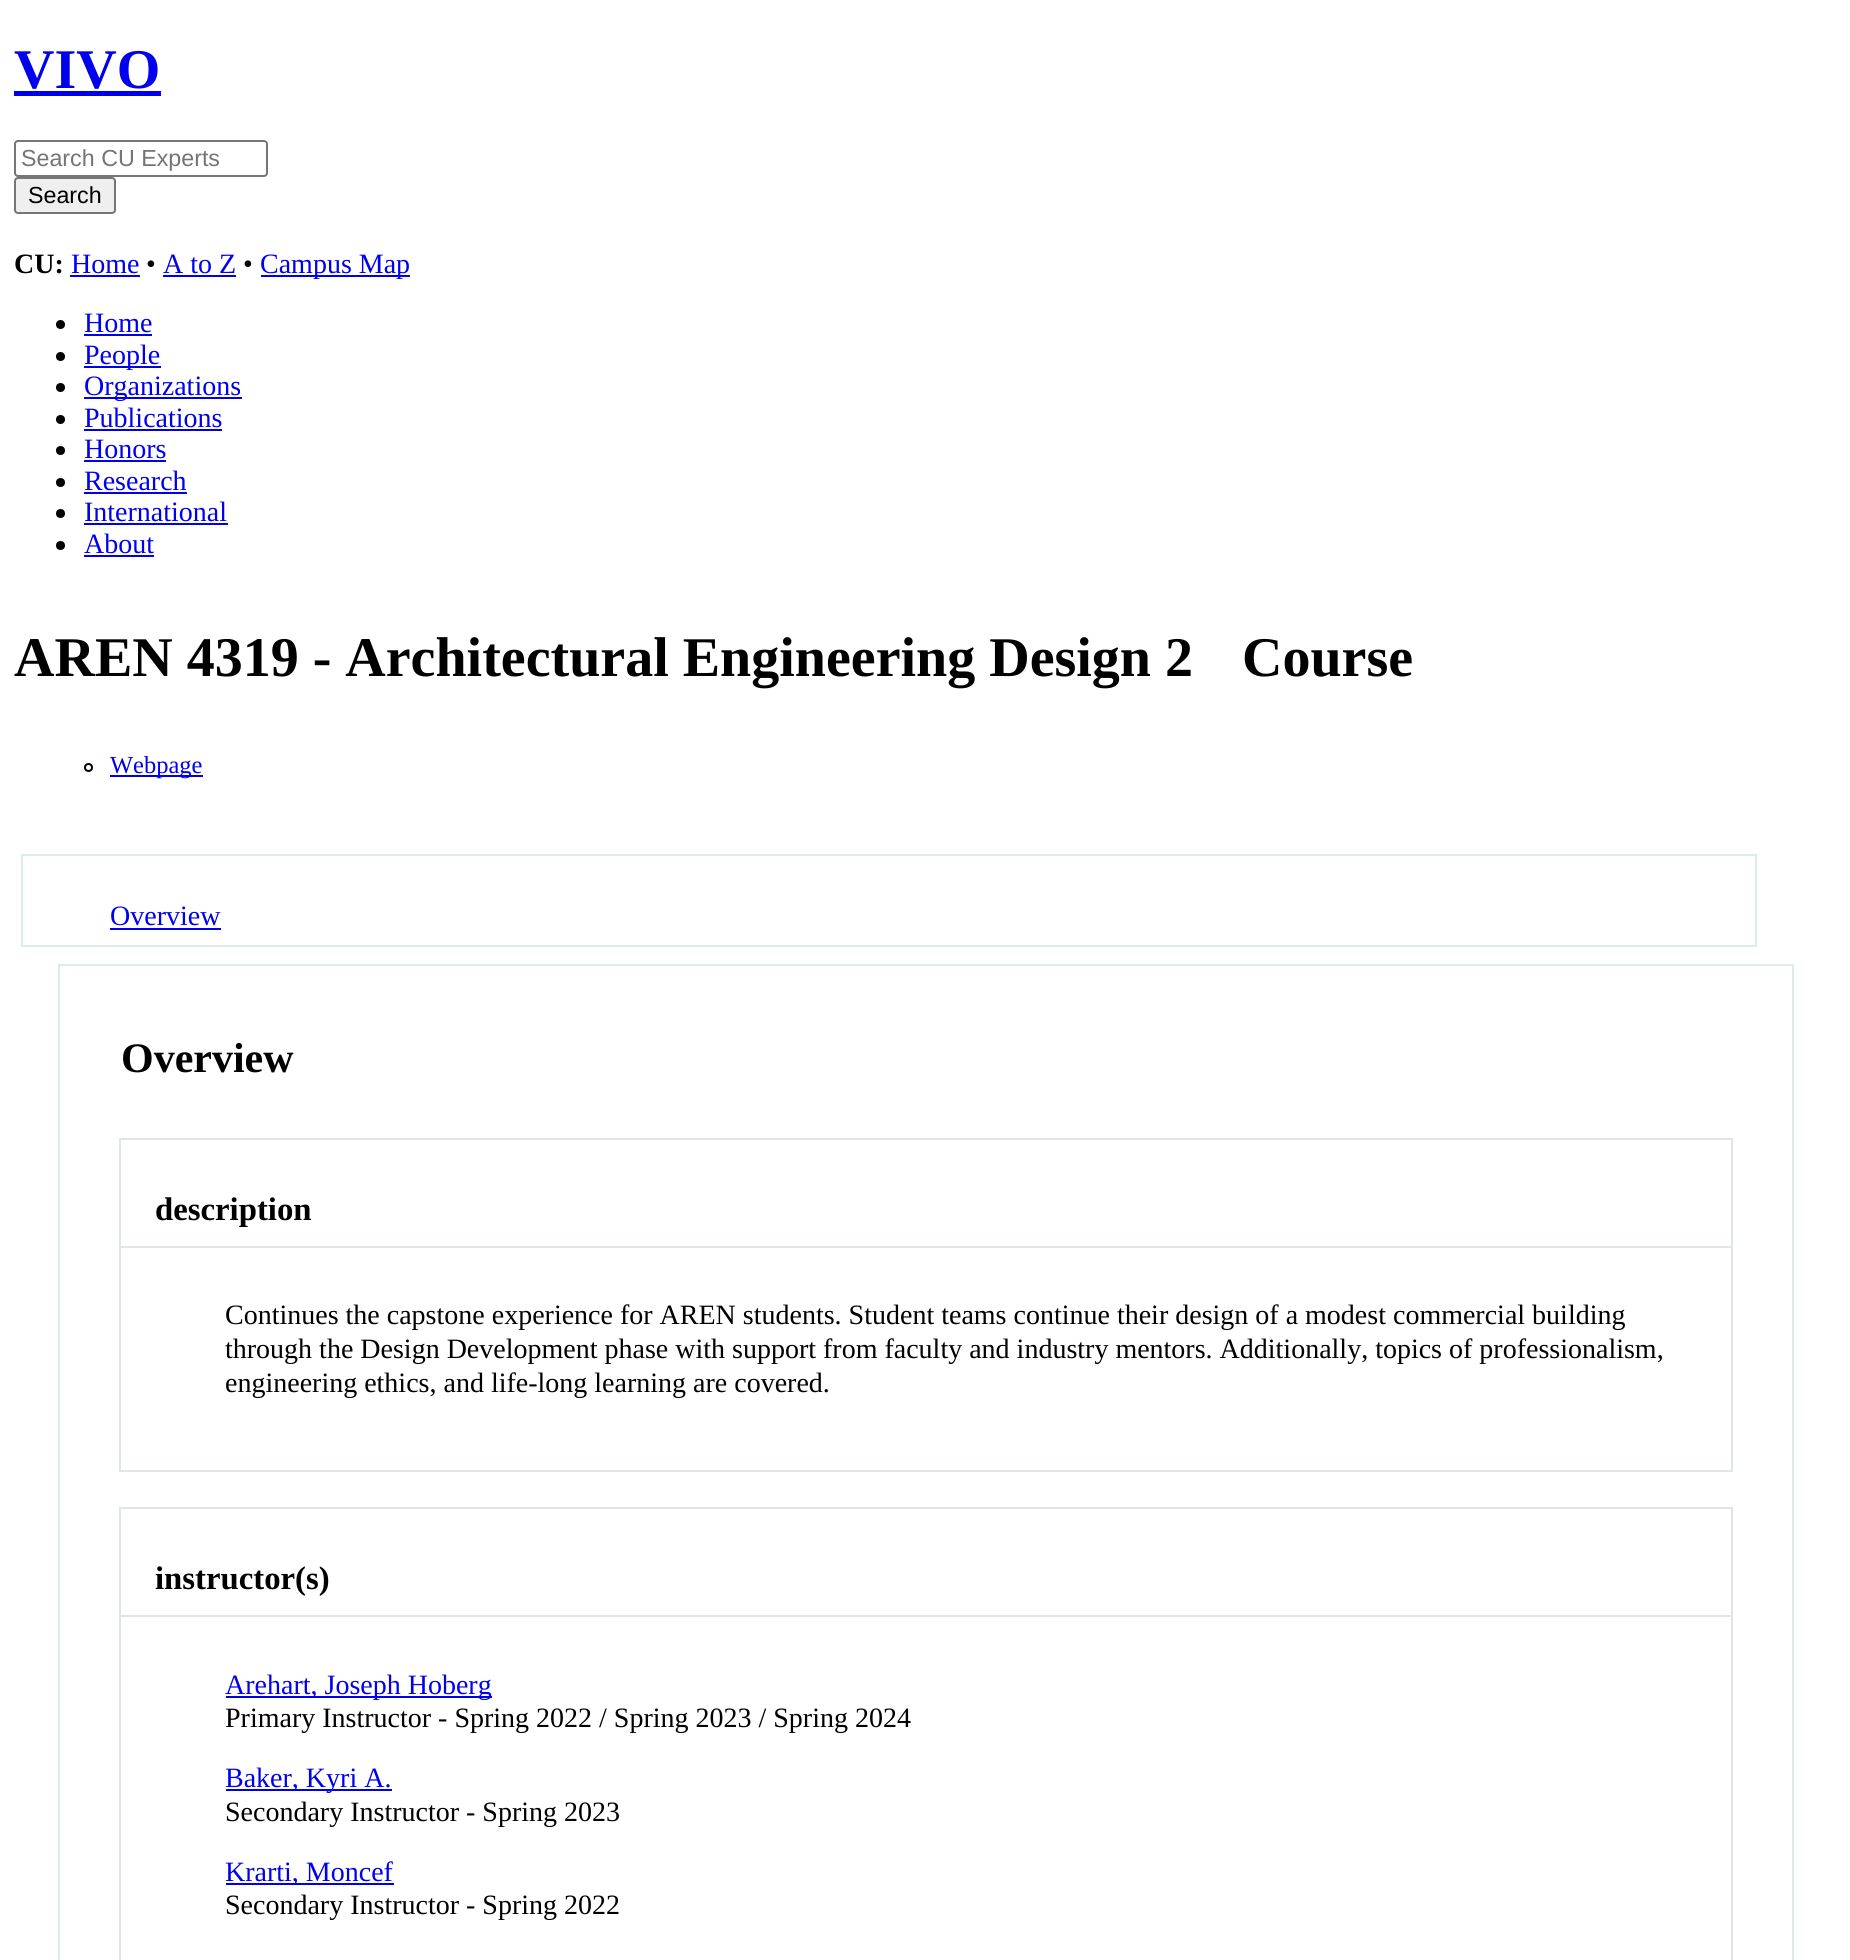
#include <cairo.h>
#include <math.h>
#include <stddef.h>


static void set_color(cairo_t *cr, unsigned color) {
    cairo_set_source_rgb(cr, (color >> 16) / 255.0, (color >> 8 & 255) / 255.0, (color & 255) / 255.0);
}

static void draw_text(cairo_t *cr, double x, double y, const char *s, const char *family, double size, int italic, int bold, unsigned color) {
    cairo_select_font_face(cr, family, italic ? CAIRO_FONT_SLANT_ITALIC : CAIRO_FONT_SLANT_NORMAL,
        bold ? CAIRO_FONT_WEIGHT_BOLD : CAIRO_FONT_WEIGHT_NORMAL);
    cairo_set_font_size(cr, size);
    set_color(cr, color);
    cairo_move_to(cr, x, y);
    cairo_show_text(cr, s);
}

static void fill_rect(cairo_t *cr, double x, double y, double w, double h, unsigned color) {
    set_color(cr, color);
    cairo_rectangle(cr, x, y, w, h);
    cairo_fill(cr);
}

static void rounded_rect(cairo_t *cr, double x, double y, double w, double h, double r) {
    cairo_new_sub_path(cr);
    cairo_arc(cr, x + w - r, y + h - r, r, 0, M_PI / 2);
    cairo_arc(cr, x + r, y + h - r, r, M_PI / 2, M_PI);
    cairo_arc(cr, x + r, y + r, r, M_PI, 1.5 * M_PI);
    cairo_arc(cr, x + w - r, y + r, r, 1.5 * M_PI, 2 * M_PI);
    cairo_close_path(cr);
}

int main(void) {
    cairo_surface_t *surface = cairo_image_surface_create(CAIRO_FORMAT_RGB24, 1850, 1960);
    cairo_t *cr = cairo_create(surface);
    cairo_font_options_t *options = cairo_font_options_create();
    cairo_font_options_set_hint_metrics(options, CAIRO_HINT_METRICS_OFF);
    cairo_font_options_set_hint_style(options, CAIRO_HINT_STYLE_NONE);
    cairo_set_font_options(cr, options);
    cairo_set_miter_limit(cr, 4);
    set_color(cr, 0xFFFFFF);
    cairo_paint(cr);
    draw_text(cr, 14, 88, "VIVO", "Liberation Serif", 56, 0, 1, 0x0000EE);
    fill_rect(cr, 14, 91, 147, 5, 0x0000EE);
    rounded_rect(cr, 15, 141, 252, 35, 3);
    set_color(cr, 0x767676);
    cairo_stroke(cr);
    draw_text(cr, 21, 166, "Search CU Experts", "Liberation Sans", 23.25, 0, 0, 0x757575);
    set_color(cr, 0xEFEFEF);
    rounded_rect(cr, 15, 178, 100, 35, 3);
    cairo_fill_preserve(cr);
    set_color(cr, 0x767676);
    cairo_stroke(cr);
    draw_text(cr, 28, 203, "Search", "Liberation Sans", 23.25, 0, 0, 0x000000);
    draw_text(cr, 14, 273, "CU:", "Liberation Serif", 28, 0, 1, 0x000000);
    draw_text(cr, 71, 273, "Home", "Liberation Serif", 28, 0, 0, 0x0000EE);
    fill_rect(cr, 70, 275, 70, 2, 0x0000EE);
    draw_text(cr, 146, 273, "•", "Liberation Serif", 28, 0, 0, 0x000000);
    draw_text(cr, 163, 273, "A to Z", "Liberation Serif", 28, 0, 0, 0x0000EE);
    fill_rect(cr, 163, 275, 73, 2, 0x0000EE);
    draw_text(cr, 243, 273, "•", "Liberation Serif", 28, 0, 0, 0x000000);
    fill_rect(cr, 261, 275, 149, 2, 0x0000EE);
    draw_text(cr, 260, 273, "Campus Map", "Liberation Serif", 28, 0, 0, 0x0000EE);
    set_color(cr, 0x000000);
    cairo_new_path(cr);
    cairo_arc(cr, 60.5, 324.5, 4.5, 0, 2 * M_PI);
    cairo_fill(cr);
    draw_text(cr, 84, 332, "Home", "Liberation Serif", 28, 0, 0, 0x0000EE);
    fill_rect(cr, 84, 334, 68, 2, 0x0000EE);
    set_color(cr, 0x000000);
    cairo_new_path(cr);
    cairo_arc(cr, 60.5, 356.5, 4.5, 0, 2 * M_PI);
    cairo_fill(cr);
    fill_rect(cr, 84, 366, 77, 2, 0x0000EE);
    draw_text(cr, 84, 364, "People", "Liberation Serif", 28, 0, 0, 0x0000EE);
    set_color(cr, 0x000000);
    cairo_new_path(cr);
    cairo_arc(cr, 60.5, 387.5, 4.5, 0, 2 * M_PI);
    cairo_fill(cr);
    fill_rect(cr, 84, 397, 158, 2, 0x0000EE);
    draw_text(cr, 84, 395, "Organizations", "Liberation Serif", 28, 0, 0, 0x0000EE);
    set_color(cr, 0x000000);
    cairo_new_path(cr);
    cairo_arc(cr, 60.5, 419.5, 4.5, 0, 2 * M_PI);
    cairo_fill(cr);
    draw_text(cr, 84, 427, "Publications", "Liberation Serif", 28, 0, 0, 0x0000EE);
    fill_rect(cr, 84, 429, 138, 2, 0x0000EE);
    set_color(cr, 0x000000);
    cairo_new_path(cr);
    cairo_arc(cr, 60.5, 450.5, 4.5, 0, 2 * M_PI);
    cairo_fill(cr);
    draw_text(cr, 84, 458, "Honors", "Liberation Serif", 28, 0, 0, 0x0000EE);
    fill_rect(cr, 84, 460, 82, 2, 0x0000EE);
    set_color(cr, 0x000000);
    cairo_new_path(cr);
    cairo_arc(cr, 60.5, 482.5, 4.5, 0, 2 * M_PI);
    cairo_fill(cr);
    draw_text(cr, 84, 490, "Research", "Liberation Serif", 28, 0, 0, 0x0000EE);
    fill_rect(cr, 84, 492, 103, 2, 0x0000EE);
    set_color(cr, 0x000000);
    cairo_new_path(cr);
    cairo_arc(cr, 60.5, 513.5, 4.5, 0, 2 * M_PI);
    cairo_fill(cr);
    draw_text(cr, 84, 521, "International", "Liberation Serif", 28, 0, 0, 0x0000EE);
    fill_rect(cr, 84, 523, 144, 2, 0x0000EE);
    set_color(cr, 0x000000);
    cairo_new_path(cr);
    cairo_arc(cr, 60.5, 545.5, 4.5, 0, 2 * M_PI);
    cairo_fill(cr);
    draw_text(cr, 84, 553, "About", "Liberation Serif", 28, 0, 0, 0x0000EE);
    fill_rect(cr, 84, 555, 70, 2, 0x0000EE);
    draw_text(cr, 14, 676, "AREN 4319 - Architectural Engineering Design 2", "Liberation Serif", 56, 0, 1, 0x000000);
    draw_text(cr, 1242, 676, "Course", "Liberation Serif", 56, 0, 1, 0x000000);
    cairo_new_path(cr);
    cairo_arc(cr, 88.5, 767.5, 3.5, 0, 2 * M_PI);
    cairo_stroke(cr);
    fill_rect(cr, 110, 775, 93, 2, 0x0000EE);
    draw_text(cr, 110, 773, "Webpage", "Liberation Serif", 24.5, 0, 0, 0x0000EE);
    cairo_rectangle(cr, 22, 855, 1734, 91);
    set_color(cr, 0xDFEBE5);
    cairo_stroke(cr);
    draw_text(cr, 110, 925, "Overview", "Liberation Serif", 28, 0, 0, 0x0000EE);
    fill_rect(cr, 110, 928, 111, 2, 0x0000EE);
    cairo_rectangle(cr, 59, 965, 1734, 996);
    set_color(cr, 0xDFEBE5);
    cairo_stroke(cr);
    draw_text(cr, 121, 1072, "Overview", "Liberation Serif", 42, 0, 1, 0x000000);
    cairo_rectangle(cr, 120, 1139, 1612, 332);
    set_color(cr, 0xDFE6E5);
    cairo_stroke(cr);
    fill_rect(cr, 121, 1246, 1610, 2, 0xDFE6E5);
    draw_text(cr, 155, 1220, "description", "Liberation Serif", 32.75, 0, 1, 0x000000);
    draw_text(cr, 225, 1324, "Continues the capstone experience for AREN students. Student teams continue their design of a modest commercial building", "Liberation Serif", 28, 0, 0, 0x000000);
    draw_text(cr, 225, 1358, "through the Design Development phase with support from faculty and industry mentors. Additionally, topics of professionalism,", "Liberation Serif", 28, 0, 0, 0x000000);
    draw_text(cr, 225, 1392, "engineering ethics, and life-long learning are covered.", "Liberation Serif", 28, 0, 0, 0x000000);
    cairo_rectangle(cr, 120, 1508, 1612, 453);
    set_color(cr, 0xDFE6E5);
    cairo_stroke(cr);
    fill_rect(cr, 121, 1615, 1610, 2, 0xDFE6E5);
    draw_text(cr, 155, 1589, "instructor(s)", "Liberation Serif", 32.75, 0, 1, 0x000000);
    fill_rect(cr, 226, 1696, 266, 2, 0x0000EE);
    draw_text(cr, 225, 1694, "Arehart, Joseph Hoberg", "Liberation Serif", 28, 0, 0, 0x0000EE);
    draw_text(cr, 225, 1727, "Primary Instructor - Spring 2022 / Spring 2023 / Spring 2024", "Liberation Serif", 28, 0, 0, 0x000000);
    fill_rect(cr, 226, 1789, 166, 2, 0x0000EE);
    draw_text(cr, 225, 1787, "Baker, Kyri A.", "Liberation Serif", 28, 0, 0, 0x0000EE);
    draw_text(cr, 225, 1821, "Secondary Instructor - Spring 2023", "Liberation Serif", 28, 0, 0, 0x000000);
    fill_rect(cr, 226, 1883, 168, 2, 0x0000EE);
    draw_text(cr, 225, 1881, "Krarti, Moncef", "Liberation Serif", 28, 0, 0, 0x0000EE);
    draw_text(cr, 225, 1914, "Secondary Instructor - Spring 2022", "Liberation Serif", 28, 0, 0, 0x000000);
    cairo_surface_write_to_png(surface, "output.png");
    cairo_font_options_destroy(options);
    cairo_destroy(cr);
    cairo_surface_destroy(surface);
    return 0;
}
